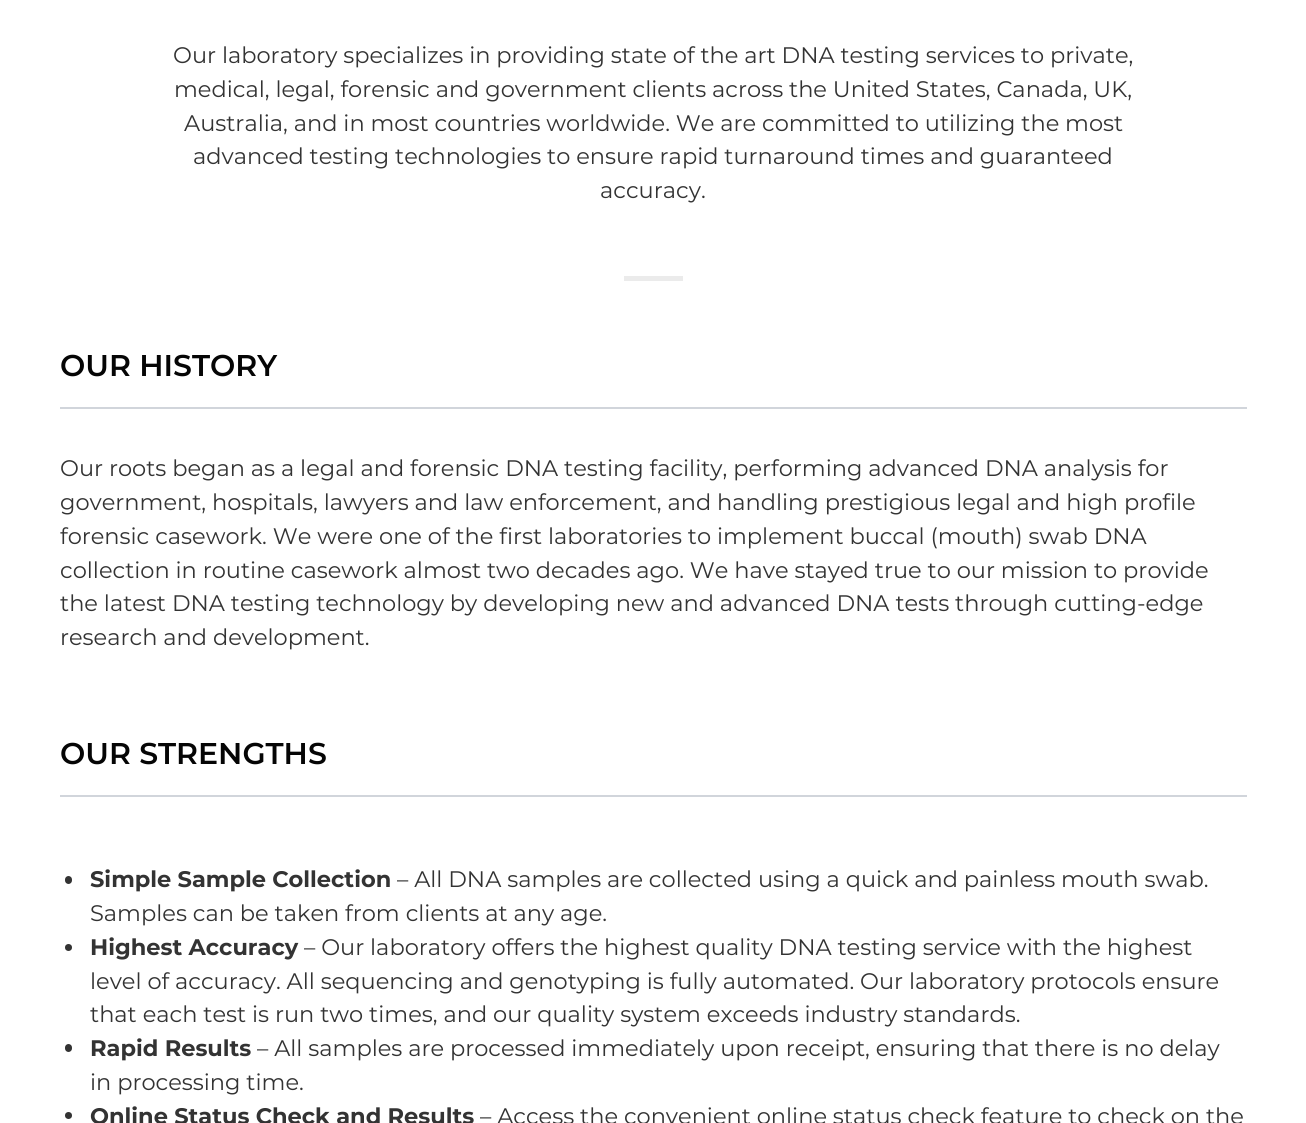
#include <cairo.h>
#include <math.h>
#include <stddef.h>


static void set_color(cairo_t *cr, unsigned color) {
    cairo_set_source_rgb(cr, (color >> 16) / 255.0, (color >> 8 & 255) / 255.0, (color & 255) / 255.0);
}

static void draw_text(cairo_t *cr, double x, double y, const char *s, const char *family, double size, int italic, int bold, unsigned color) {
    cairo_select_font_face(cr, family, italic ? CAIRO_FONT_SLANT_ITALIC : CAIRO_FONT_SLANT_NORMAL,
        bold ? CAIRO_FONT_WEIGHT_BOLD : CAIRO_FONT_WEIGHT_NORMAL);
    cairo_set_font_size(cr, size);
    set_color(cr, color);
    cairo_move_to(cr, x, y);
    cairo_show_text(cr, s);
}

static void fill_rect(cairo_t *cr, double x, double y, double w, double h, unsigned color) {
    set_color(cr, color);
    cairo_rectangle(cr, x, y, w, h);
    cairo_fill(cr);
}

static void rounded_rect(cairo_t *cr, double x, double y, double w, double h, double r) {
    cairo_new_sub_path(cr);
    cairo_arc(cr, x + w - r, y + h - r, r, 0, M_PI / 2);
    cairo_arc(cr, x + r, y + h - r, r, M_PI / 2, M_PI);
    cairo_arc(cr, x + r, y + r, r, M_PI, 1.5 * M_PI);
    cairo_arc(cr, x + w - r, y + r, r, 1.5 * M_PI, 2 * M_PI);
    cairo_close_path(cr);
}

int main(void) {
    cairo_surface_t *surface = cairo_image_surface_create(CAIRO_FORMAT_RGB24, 1306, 1123);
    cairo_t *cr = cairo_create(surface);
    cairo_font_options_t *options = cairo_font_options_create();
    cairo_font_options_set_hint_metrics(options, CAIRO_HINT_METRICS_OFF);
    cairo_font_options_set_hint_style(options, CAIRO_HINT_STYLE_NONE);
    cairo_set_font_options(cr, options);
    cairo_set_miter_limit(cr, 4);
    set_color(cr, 0xFFFFFF);
    cairo_paint(cr);
    draw_text(cr, 173, 63, "Our laboratory specializes in providing state of the art DNA testing services to private,", "Montserrat", 22.5, 0, 0, 0x333333);
    draw_text(cr, 174, 97, "medical, legal, forensic and government clients across the United States, Canada, UK,", "Montserrat", 22.5, 0, 0, 0x333333);
    draw_text(cr, 184, 131, "Australia, and in most countries worldwide. We are committed to utilizing the most", "Montserrat", 22.5, 0, 0, 0x333333);
    draw_text(cr, 193, 164, "advanced testing technologies to ensure rapid turnaround times and guaranteed", "Montserrat", 22.5, 0, 0, 0x333333);
    draw_text(cr, 600, 198, "accuracy.", "Montserrat", 22.5, 0, 0, 0x333333);
    fill_rect(cr, 624, 276, 59, 5, 0xEBEBEB);
    fill_rect(cr, 60, 407, 1187, 2, 0xD1D5DB);
    draw_text(cr, 60, 376, "OUR HISTORY", "Montserrat SemiBold", 30, 0, 0, 0x050505);
    draw_text(cr, 60, 476, "Our roots began as a legal and forensic DNA testing facility, performing advanced DNA analysis for", "Montserrat", 22.5, 0, 0, 0x333333);
    draw_text(cr, 60, 510, "government, hospitals, lawyers and law enforcement, and handling prestigious legal and high profile", "Montserrat", 22.5, 0, 0, 0x333333);
    draw_text(cr, 60, 544, "forensic casework. We were one of the first laboratories to implement buccal (mouth) swab DNA", "Montserrat", 22.5, 0, 0, 0x333333);
    draw_text(cr, 60, 578, "collection in routine casework almost two decades ago. We have stayed true to our mission to provide", "Montserrat", 22.5, 0, 0, 0x333333);
    draw_text(cr, 60, 611, "the latest DNA testing technology by developing new and advanced DNA tests through cutting-edge", "Montserrat", 22.5, 0, 0, 0x333333);
    draw_text(cr, 60, 645, "research and development.", "Montserrat", 22.5, 0, 0, 0x333333);
    fill_rect(cr, 60, 795, 1187, 2, 0xD1D5DB);
    draw_text(cr, 60, 764, "OUR STRENGTHS", "Montserrat SemiBold", 30, 0, 0, 0x050505);
    set_color(cr, 0x333333);
    rounded_rect(cr, 65, 876, 7, 8, 3.5);
    cairo_fill(cr);
    draw_text(cr, 90, 887, "Simple Sample Collection", "Montserrat", 22.5, 0, 1, 0x333333);
    draw_text(cr, 397, 887, "– All DNA samples are collected using a quick and painless mouth swab.", "Montserrat", 22.5, 0, 0, 0x333333);
    draw_text(cr, 90, 921, "Samples can be taken from clients at any age.", "Montserrat", 22.5, 0, 0, 0x333333);
    cairo_new_path(cr);
    cairo_arc(cr, 68.5, 947.5, 3.5, 0, 2 * M_PI);
    cairo_fill(cr);
    draw_text(cr, 90, 955, "Highest Accuracy", "Montserrat", 22.5, 0, 1, 0x333333);
    draw_text(cr, 304, 955, "– Our laboratory offers the highest quality DNA testing service with the highest", "Montserrat", 22.5, 0, 0, 0x333333);
    draw_text(cr, 90, 989, "level of accuracy. All sequencing and genotyping is fully automated. Our laboratory protocols ensure", "Montserrat", 22.5, 0, 0, 0x333333);
    draw_text(cr, 90, 1022, "that each test is run two times, and our quality system exceeds industry standards.", "Montserrat", 22.5, 0, 0, 0x333333);
    rounded_rect(cr, 65, 1044, 7, 8, 3.5);
    cairo_fill(cr);
    draw_text(cr, 90, 1056, "Rapid Results", "Montserrat", 22.5, 0, 1, 0x333333);
    draw_text(cr, 257, 1056, "– All samples are processed immediately upon receipt, ensuring that there is no delay", "Montserrat", 22.5, 0, 0, 0x333333);
    draw_text(cr, 90, 1090, "in processing time.", "Montserrat", 22.5, 0, 0, 0x333333);
    cairo_new_path(cr);
    cairo_arc(cr, 68.5, 1115.5, 3.5, 0, 2 * M_PI);
    cairo_fill(cr);
    draw_text(cr, 90, 1124, "Online Status Check and Results", "Montserrat", 22.5, 0, 1, 0x333333);
    draw_text(cr, 480, 1124, "– Access the convenient online status check feature to check on the", "Montserrat", 22.5, 0, 0, 0x333333);
    cairo_surface_write_to_png(surface, "output.png");
    cairo_font_options_destroy(options);
    cairo_destroy(cr);
    cairo_surface_destroy(surface);
    return 0;
}
